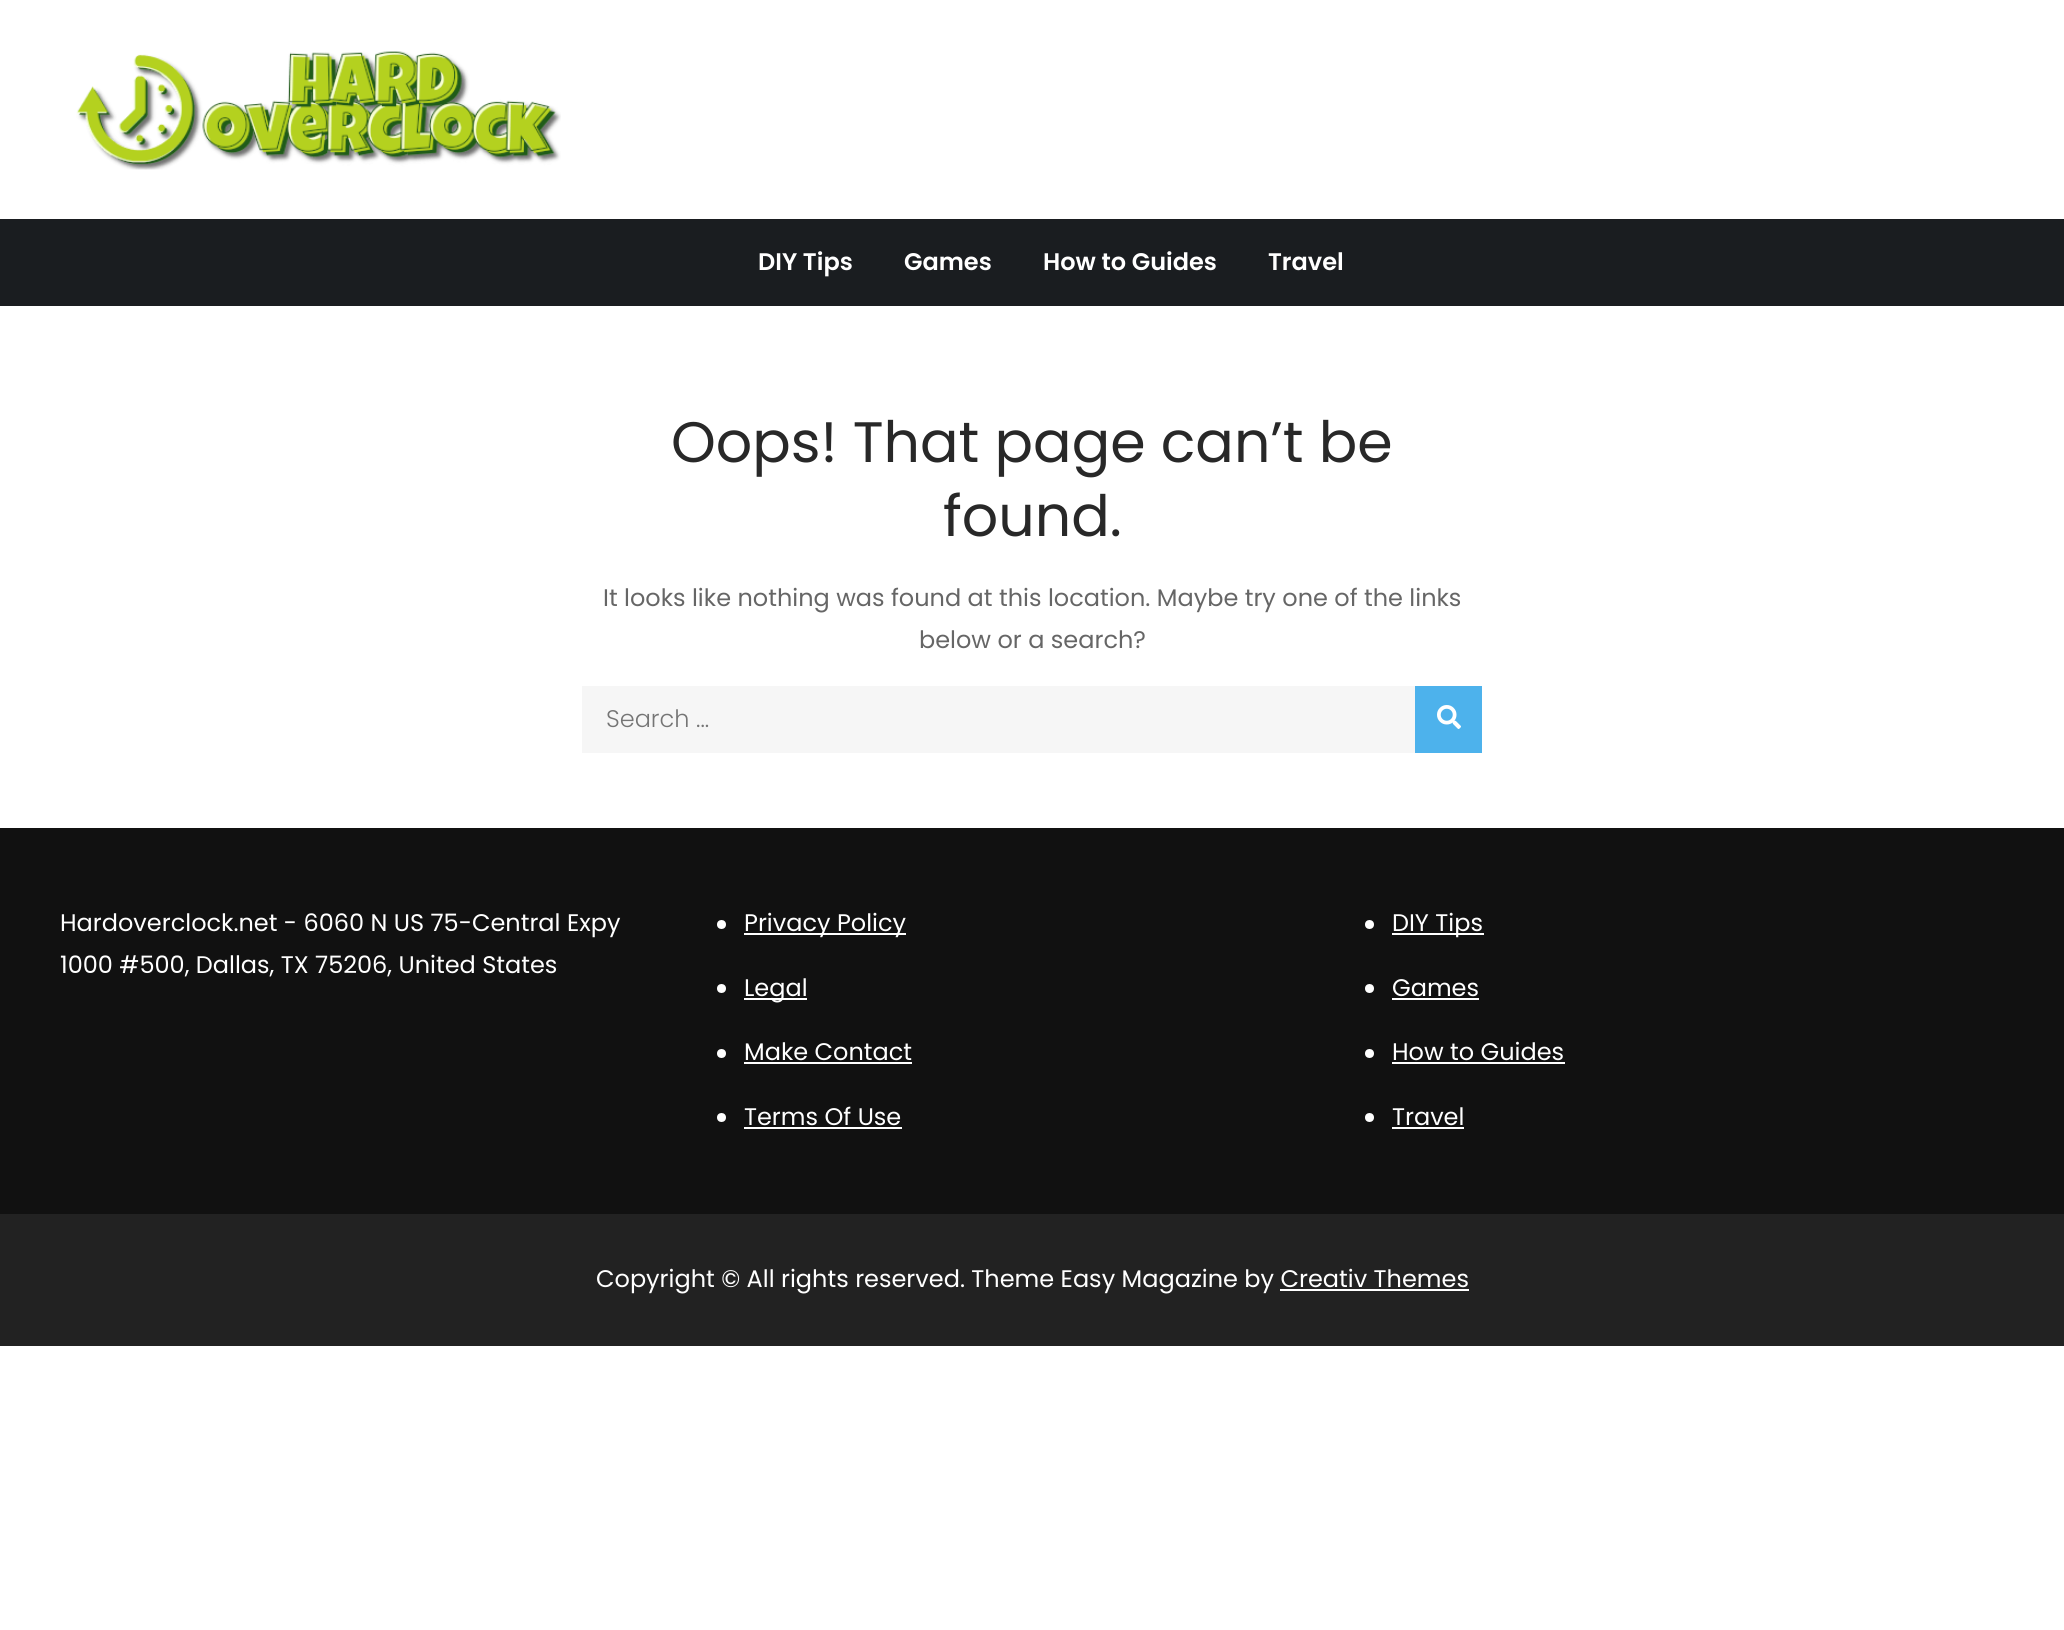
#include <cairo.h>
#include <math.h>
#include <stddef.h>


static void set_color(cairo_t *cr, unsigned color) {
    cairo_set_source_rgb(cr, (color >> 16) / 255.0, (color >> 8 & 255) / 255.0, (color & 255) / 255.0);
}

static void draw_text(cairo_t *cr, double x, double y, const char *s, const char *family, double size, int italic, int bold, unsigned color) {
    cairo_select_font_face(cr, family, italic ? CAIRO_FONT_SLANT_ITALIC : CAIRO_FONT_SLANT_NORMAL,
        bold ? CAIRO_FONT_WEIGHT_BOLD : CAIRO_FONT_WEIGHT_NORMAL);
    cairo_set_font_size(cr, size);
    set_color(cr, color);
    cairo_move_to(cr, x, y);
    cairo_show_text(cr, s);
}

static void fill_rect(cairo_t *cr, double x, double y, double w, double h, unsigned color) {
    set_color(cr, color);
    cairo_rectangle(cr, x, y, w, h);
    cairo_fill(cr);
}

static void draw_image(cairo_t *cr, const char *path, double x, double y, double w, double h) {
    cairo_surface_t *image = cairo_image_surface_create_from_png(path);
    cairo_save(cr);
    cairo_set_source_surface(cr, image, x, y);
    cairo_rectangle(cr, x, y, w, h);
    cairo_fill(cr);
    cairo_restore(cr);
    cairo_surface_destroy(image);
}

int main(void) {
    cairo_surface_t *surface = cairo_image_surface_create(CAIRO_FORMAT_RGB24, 2064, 1630);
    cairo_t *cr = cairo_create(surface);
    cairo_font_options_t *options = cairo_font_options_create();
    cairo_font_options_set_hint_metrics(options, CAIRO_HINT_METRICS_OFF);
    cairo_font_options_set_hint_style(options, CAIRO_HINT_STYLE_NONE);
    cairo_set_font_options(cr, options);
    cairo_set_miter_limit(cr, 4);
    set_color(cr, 0xFFFFFF);
    cairo_paint(cr);
    draw_image(cr, "assets/img1.png", 76, 51, 485, 119);
    fill_rect(cr, 0, 219, 2064, 87, 0x1A1D20);
    draw_text(cr, 758, 270, "DIY Tips", "Poppins SemiBold", 24, 0, 0, 0xFFFFFF);
    draw_text(cr, 904, 270, "Games", "Poppins SemiBold", 24, 0, 0, 0xFFFFFF);
    draw_text(cr, 1043, 270, "How to Guides", "Poppins SemiBold", 24, 0, 0, 0xFFFFFF);
    draw_text(cr, 1268, 270, "Travel", "Poppins SemiBold", 24, 0, 0, 0xFFFFFF);
    draw_text(cr, 671, 462, "Oops! That page can’t be", "Poppins", 57, 0, 0, 0x282828);
    draw_text(cr, 943, 536, "found.", "Poppins", 57, 0, 0, 0x282828);
    draw_text(cr, 603, 606, "It looks like nothing was found at this location. Maybe try one of the links", "Poppins", 24, 0, 0, 0x666666);
    draw_text(cr, 919, 648, "below or a search?", "Poppins", 24, 0, 0, 0x666666);
    fill_rect(cr, 582, 686, 833, 67, 0xF6F6F6);
    draw_text(cr, 606, 727, "Search ...", "Poppins Light", 24, 0, 0, 0x757575);
    fill_rect(cr, 1415, 686, 67, 67, 0x4DB2EC);
    draw_image(cr, "assets/img2.png", 1437, 705, 24, 24);
    fill_rect(cr, 0, 828, 2064, 386, 0x111111);
    draw_text(cr, 60, 931, "Hardoverclock.net - 6060 N US 75-Central Expy", "Poppins", 24, 0, 0, 0xFFFFFF);
    draw_text(cr, 60, 973, "1000 #500, Dallas, TX 75206, United States", "Poppins", 24, 0, 0, 0xFFFFFF);
    cairo_new_path(cr);
    cairo_arc(cr, 721.5, 924.5, 4.5, 0, 2 * M_PI);
    cairo_fill(cr);
    fill_rect(cr, 744, 933, 162, 2, 0xFFFFFF);
    draw_text(cr, 744, 931, "Privacy Policy", "Poppins", 24, 0, 0, 0xFFFFFF);
    cairo_new_path(cr);
    cairo_arc(cr, 721.5, 988.5, 4.5, 0, 2 * M_PI);
    cairo_fill(cr);
    fill_rect(cr, 744, 998, 63, 2, 0xFFFFFF);
    draw_text(cr, 744, 996, "Legal", "Poppins", 24, 0, 0, 0xFFFFFF);
    cairo_new_path(cr);
    cairo_arc(cr, 721.5, 1053.5, 4.5, 0, 2 * M_PI);
    cairo_fill(cr);
    draw_text(cr, 744, 1060, "Make Contact", "Poppins", 24, 0, 0, 0xFFFFFF);
    fill_rect(cr, 744, 1062, 168, 2, 0xFFFFFF);
    cairo_new_path(cr);
    cairo_arc(cr, 721.5, 1117.5, 4.5, 0, 2 * M_PI);
    cairo_fill(cr);
    draw_text(cr, 744, 1125, "Terms Of Use", "Poppins", 24, 0, 0, 0xFFFFFF);
    fill_rect(cr, 744, 1127, 158, 2, 0xFFFFFF);
    cairo_new_path(cr);
    cairo_arc(cr, 1369.5, 924.5, 4.5, 0, 2 * M_PI);
    cairo_fill(cr);
    fill_rect(cr, 1392, 933, 92, 2, 0xFFFFFF);
    draw_text(cr, 1392, 931, "DIY Tips", "Poppins", 24, 0, 0, 0xFFFFFF);
    cairo_new_path(cr);
    cairo_arc(cr, 1369.5, 988.5, 4.5, 0, 2 * M_PI);
    cairo_fill(cr);
    draw_text(cr, 1392, 996, "Games", "Poppins", 24, 0, 0, 0xFFFFFF);
    fill_rect(cr, 1392, 998, 87, 2, 0xFFFFFF);
    cairo_new_path(cr);
    cairo_arc(cr, 1369.5, 1053.5, 4.5, 0, 2 * M_PI);
    cairo_fill(cr);
    draw_text(cr, 1392, 1060, "How to Guides", "Poppins", 24, 0, 0, 0xFFFFFF);
    fill_rect(cr, 1392, 1062, 173, 2, 0xFFFFFF);
    cairo_new_path(cr);
    cairo_arc(cr, 1369.5, 1117.5, 4.5, 0, 2 * M_PI);
    cairo_fill(cr);
    draw_text(cr, 1392, 1125, "Travel", "Poppins", 24, 0, 0, 0xFFFFFF);
    fill_rect(cr, 1392, 1127, 72, 2, 0xFFFFFF);
    fill_rect(cr, 0, 1214, 2064, 132, 0x222222);
    draw_text(cr, 596, 1287, "Copyright © All rights reserved. Theme Easy Magazine by Creativ Themes", "Poppins", 24, 0, 0, 0xFFFFFF);
    fill_rect(cr, 1280, 1289, 189, 2, 0xFFFFFF);
    cairo_surface_write_to_png(surface, "output.png");
    cairo_font_options_destroy(options);
    cairo_destroy(cr);
    cairo_surface_destroy(surface);
    return 0;
}
